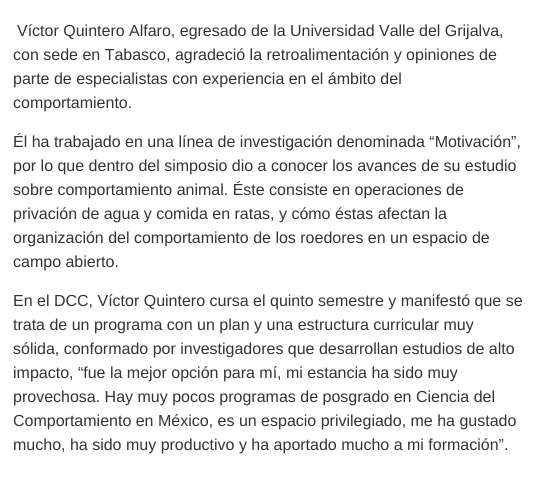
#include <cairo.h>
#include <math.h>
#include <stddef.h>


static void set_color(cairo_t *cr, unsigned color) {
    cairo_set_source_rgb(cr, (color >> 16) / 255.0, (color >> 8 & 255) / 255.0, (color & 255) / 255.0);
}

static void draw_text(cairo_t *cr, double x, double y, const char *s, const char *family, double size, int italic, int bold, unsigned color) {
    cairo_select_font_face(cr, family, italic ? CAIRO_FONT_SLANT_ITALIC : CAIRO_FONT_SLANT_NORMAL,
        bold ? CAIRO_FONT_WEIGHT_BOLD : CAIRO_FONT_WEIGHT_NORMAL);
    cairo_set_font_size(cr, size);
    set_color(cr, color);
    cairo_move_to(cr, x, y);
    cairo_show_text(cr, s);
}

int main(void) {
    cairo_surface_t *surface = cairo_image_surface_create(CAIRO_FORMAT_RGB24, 538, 483);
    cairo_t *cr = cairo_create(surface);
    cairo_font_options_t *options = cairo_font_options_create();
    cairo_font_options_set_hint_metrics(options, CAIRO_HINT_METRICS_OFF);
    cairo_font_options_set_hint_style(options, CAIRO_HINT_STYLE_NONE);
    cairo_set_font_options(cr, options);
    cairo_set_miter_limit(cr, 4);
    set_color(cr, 0xFFFFFF);
    cairo_paint(cr);
    draw_text(cr, 17, 36, "Víctor Quintero Alfaro, egresado de la Universidad Valle del Grijalva,", "Liberation Sans", 16, 0, 0, 0x333333);
    draw_text(cr, 13, 60, "con sede en Tabasco, agradeció la retroalimentación y opiniones de", "Liberation Sans", 16, 0, 0, 0x333333);
    draw_text(cr, 13, 84, "parte de especialistas con experiencia en el ámbito del", "Liberation Sans", 16, 0, 0, 0x333333);
    draw_text(cr, 13, 108, "comportamiento.", "Liberation Sans", 16, 0, 0, 0x333333);
    draw_text(cr, 13, 147, "Él ha trabajado en una línea de investigación denominada “Motivación”,", "Liberation Sans", 16, 0, 0, 0x333333);
    draw_text(cr, 13, 171, "por lo que dentro del simposio dio a conocer los avances de su estudio", "Liberation Sans", 16, 0, 0, 0x333333);
    draw_text(cr, 13, 195, "sobre comportamiento animal. Éste consiste en operaciones de", "Liberation Sans", 16, 0, 0, 0x333333);
    draw_text(cr, 13, 219, "privación de agua y comida en ratas, y cómo éstas afectan la", "Liberation Sans", 16, 0, 0, 0x333333);
    draw_text(cr, 13, 243, "organización del comportamiento de los roedores en un espacio de", "Liberation Sans", 16, 0, 0, 0x333333);
    draw_text(cr, 13, 267, "campo abierto.", "Liberation Sans", 16, 0, 0, 0x333333);
    draw_text(cr, 13, 306, "En el DCC, Víctor Quintero cursa el quinto semestre y manifestó que se", "Liberation Sans", 16, 0, 0, 0x333333);
    draw_text(cr, 13, 330, "trata de un programa con un plan y una estructura curricular muy", "Liberation Sans", 16, 0, 0, 0x333333);
    draw_text(cr, 13, 354, "sólida, conformado por investigadores que desarrollan estudios de alto", "Liberation Sans", 16, 0, 0, 0x333333);
    draw_text(cr, 13, 378, "impacto, “fue la mejor opción para mí, mi estancia ha sido muy", "Liberation Sans", 16, 0, 0, 0x333333);
    draw_text(cr, 13, 402, "provechosa. Hay muy pocos programas de posgrado en Ciencia del", "Liberation Sans", 16, 0, 0, 0x333333);
    draw_text(cr, 13, 426, "Comportamiento en México, es un espacio privilegiado, me ha gustado", "Liberation Sans", 16, 0, 0, 0x333333);
    draw_text(cr, 13, 450, "mucho, ha sido muy productivo y ha aportado mucho a mi formación”.", "Liberation Sans", 16, 0, 0, 0x333333);
    cairo_surface_write_to_png(surface, "output.png");
    cairo_font_options_destroy(options);
    cairo_destroy(cr);
    cairo_surface_destroy(surface);
    return 0;
}
